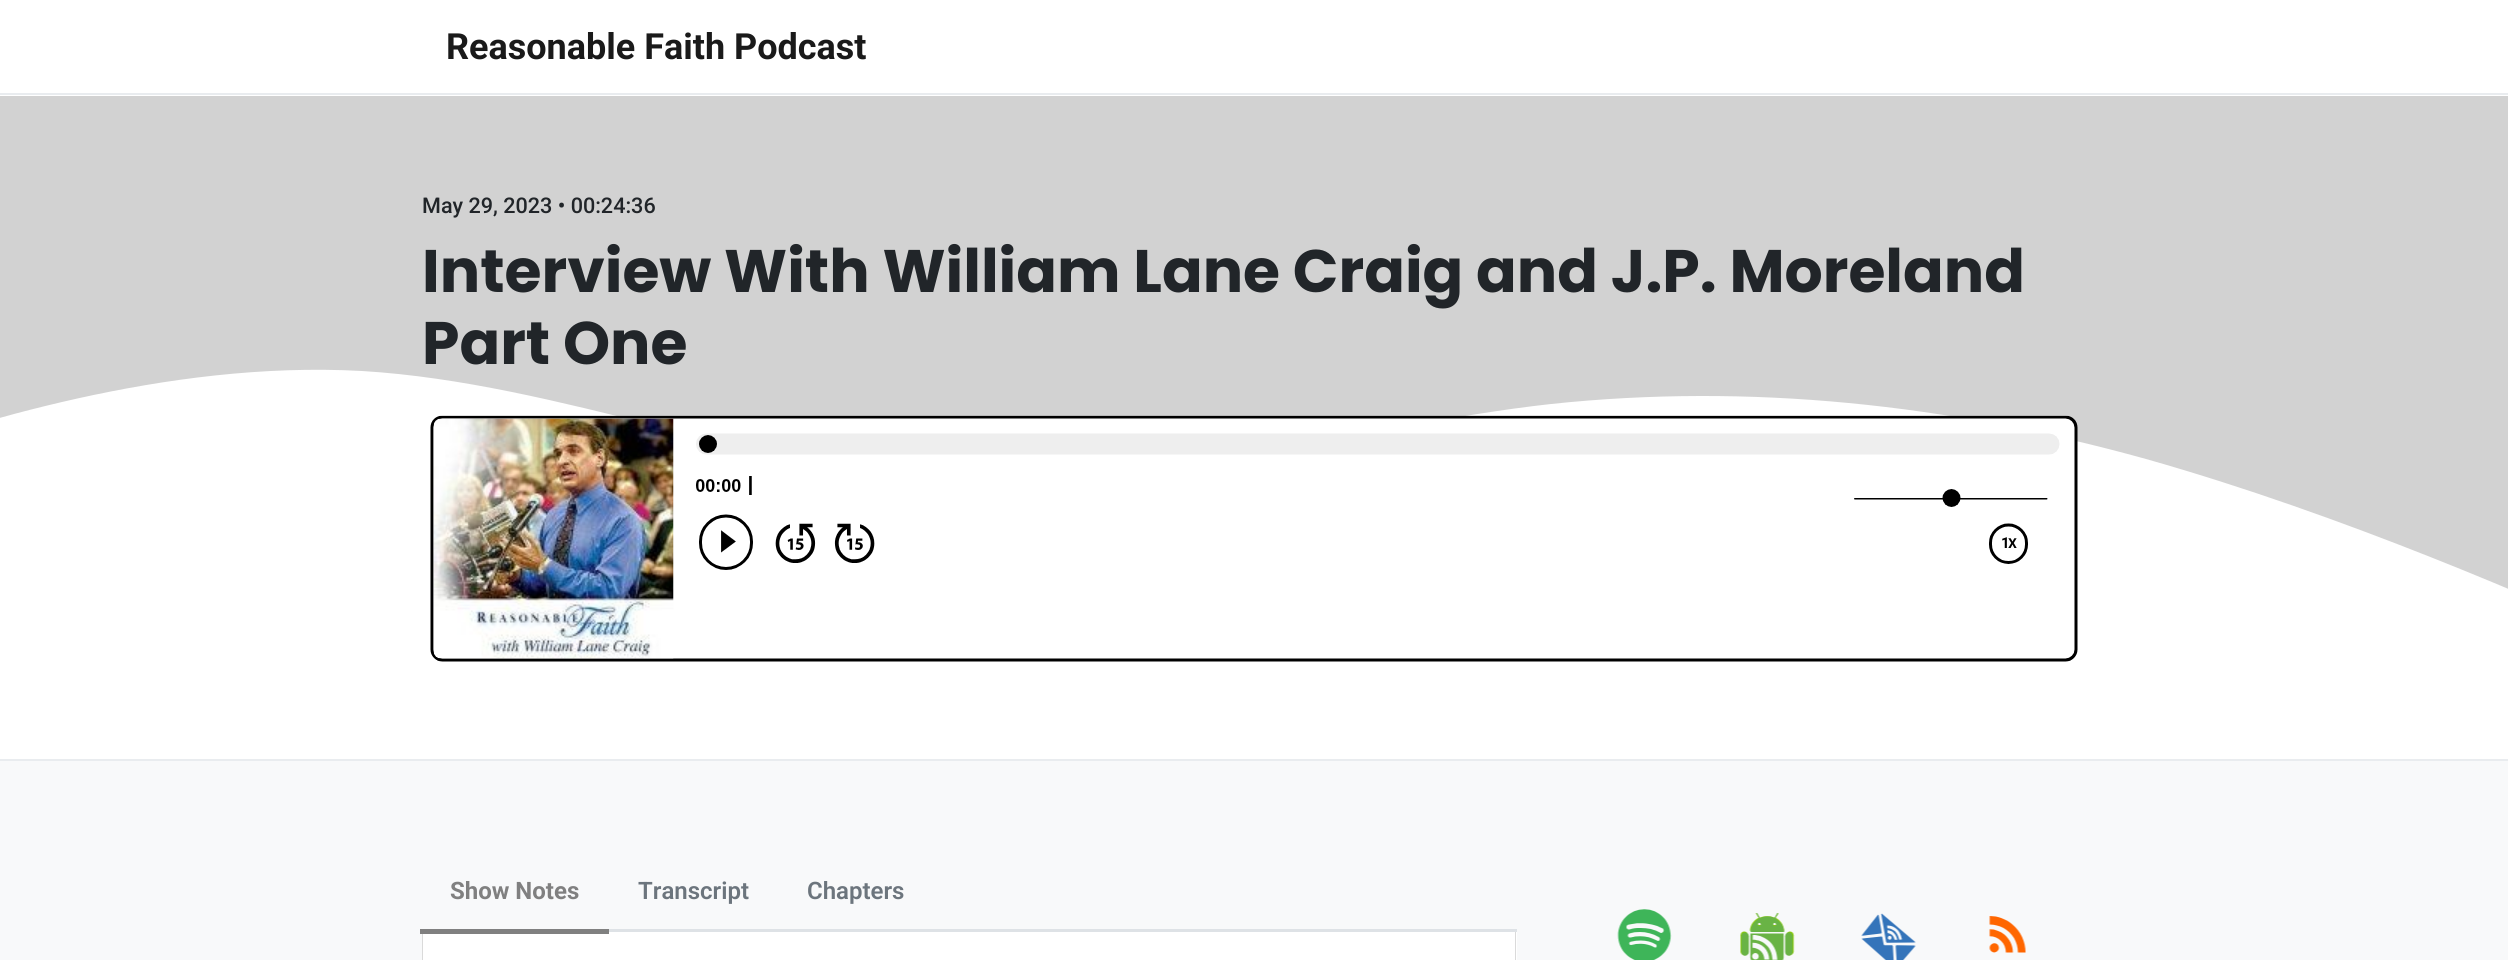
#include <cairo.h>
#include <math.h>
#include <stddef.h>


static void set_color(cairo_t *cr, unsigned color) {
    cairo_set_source_rgb(cr, (color >> 16) / 255.0, (color >> 8 & 255) / 255.0, (color & 255) / 255.0);
}

static void draw_text(cairo_t *cr, double x, double y, const char *s, const char *family, double size, int italic, int bold, unsigned color) {
    cairo_select_font_face(cr, family, italic ? CAIRO_FONT_SLANT_ITALIC : CAIRO_FONT_SLANT_NORMAL,
        bold ? CAIRO_FONT_WEIGHT_BOLD : CAIRO_FONT_WEIGHT_NORMAL);
    cairo_set_font_size(cr, size);
    set_color(cr, color);
    cairo_move_to(cr, x, y);
    cairo_show_text(cr, s);
}

static void fill_rect(cairo_t *cr, double x, double y, double w, double h, unsigned color) {
    set_color(cr, color);
    cairo_rectangle(cr, x, y, w, h);
    cairo_fill(cr);
}

static void draw_image(cairo_t *cr, const char *path, double x, double y, double w, double h) {
    cairo_surface_t *image = cairo_image_surface_create_from_png(path);
    cairo_save(cr);
    cairo_set_source_surface(cr, image, x, y);
    cairo_rectangle(cr, x, y, w, h);
    cairo_fill(cr);
    cairo_restore(cr);
    cairo_surface_destroy(image);
}

int main(void) {
    cairo_surface_t *surface = cairo_image_surface_create(CAIRO_FORMAT_RGB24, 2508, 960);
    cairo_t *cr = cairo_create(surface);
    cairo_font_options_t *options = cairo_font_options_create();
    cairo_font_options_set_hint_metrics(options, CAIRO_HINT_METRICS_OFF);
    cairo_font_options_set_hint_style(options, CAIRO_HINT_STYLE_NONE);
    cairo_set_font_options(cr, options);
    cairo_set_miter_limit(cr, 4);
    set_color(cr, 0xF8F9FA);
    cairo_paint(cr);
    fill_rect(cr, 0, 0, 2508, 93, 0xFFFFFF);
    fill_rect(cr, 0, 93, 2508, 2, 0xE9ECEF);
    draw_text(cr, 446, 59, "Reasonable Faith Podcast", "Roboto", 36, 0, 1, 0x1A1A1A);
    fill_rect(cr, 0, 95, 2508, 664, 0xFFFFFF);
    set_color(cr, 0xD2D2D2);
    cairo_new_path(cr);
    cairo_move_to(cr, -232, 493);
    cairo_line_to(cr, -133, 459);
    cairo_curve_to(cr, -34, 426, 164, 360, 362, 371);
    cairo_curve_to(cr, 560, 383, 758, 470, 957, 482);
    cairo_curve_to(cr, 1155, 493, 1353, 426, 1551, 404);
    cairo_curve_to(cr, 1749, 383, 1948, 404, 2146, 459);
    cairo_curve_to(cr, 2344, 515, 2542, 602, 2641, 647);
    cairo_line_to(cr, 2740, 691);
    cairo_line_to(cr, 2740, 96);
    cairo_line_to(cr, -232, 96);
    cairo_close_path(cr);
    cairo_fill(cr);
    fill_rect(cr, 0, 759, 2508, 2, 0xE9ECEF);
    draw_text(cr, 422, 213, "May 29, 2023 • 00:24:36", "Roboto Medium", 21.6, 0, 0, 0x212529);
    draw_text(cr, 422, 292, "Interview With William Lane Craig and J.P. Moreland", "Poppins", 60, 0, 1, 0x212529);
    draw_text(cr, 422, 364, "Part One", "Poppins", 60, 0, 1, 0x212529);
    draw_image(cr, "assets/img1.png", 430, 415, 1648, 247);
    fill_rect(cr, 609, 929, 908, 3, 0xDEE2E6);
    fill_rect(cr, 423, 932, 1094, 28, 0xFFFFFF);
    set_color(cr, 0xDADADA);
    cairo_set_fill_rule(cr, CAIRO_FILL_RULE_EVEN_ODD);
    cairo_new_path(cr);
    cairo_move_to(cr, 422, 932);
    cairo_line_to(cr, 1516, 932);
    cairo_line_to(cr, 1516, 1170);
    cairo_curve_to(cr, 1516, 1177, 1511, 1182, 1504, 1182);
    cairo_line_to(cr, 434, 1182);
    cairo_curve_to(cr, 427, 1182, 422, 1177, 422, 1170);
    cairo_close_path(cr);
    cairo_move_to(cr, 423, 932);
    cairo_line_to(cr, 1515, 932);
    cairo_line_to(cr, 1515, 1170);
    cairo_curve_to(cr, 1515, 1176, 1510, 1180, 1504, 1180);
    cairo_line_to(cr, 434, 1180);
    cairo_curve_to(cr, 428, 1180, 423, 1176, 423, 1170);
    cairo_close_path(cr);
    cairo_fill(cr);
    fill_rect(cr, 420, 929, 189, 5, 0x808080);
    draw_text(cr, 450, 899, "Show Notes", "Roboto", 24, 0, 1, 0x808080);
    draw_text(cr, 638, 899, "Transcript", "Roboto SemiBold", 24, 0, 0, 0x6C757D);
    draw_text(cr, 807, 899, "Chapters", "Roboto SemiBold", 24, 0, 0, 0x6C757D);
    draw_image(cr, "assets/img2.png", 1617, 909, 55, 51);
    draw_image(cr, "assets/img3.png", 1740, 913, 55, 47);
    draw_image(cr, "assets/img4.png", 1861, 913, 55, 47);
    draw_image(cr, "assets/img5.png", 1989, 916, 37, 37);
    cairo_surface_write_to_png(surface, "output.png");
    cairo_font_options_destroy(options);
    cairo_destroy(cr);
    cairo_surface_destroy(surface);
    return 0;
}
